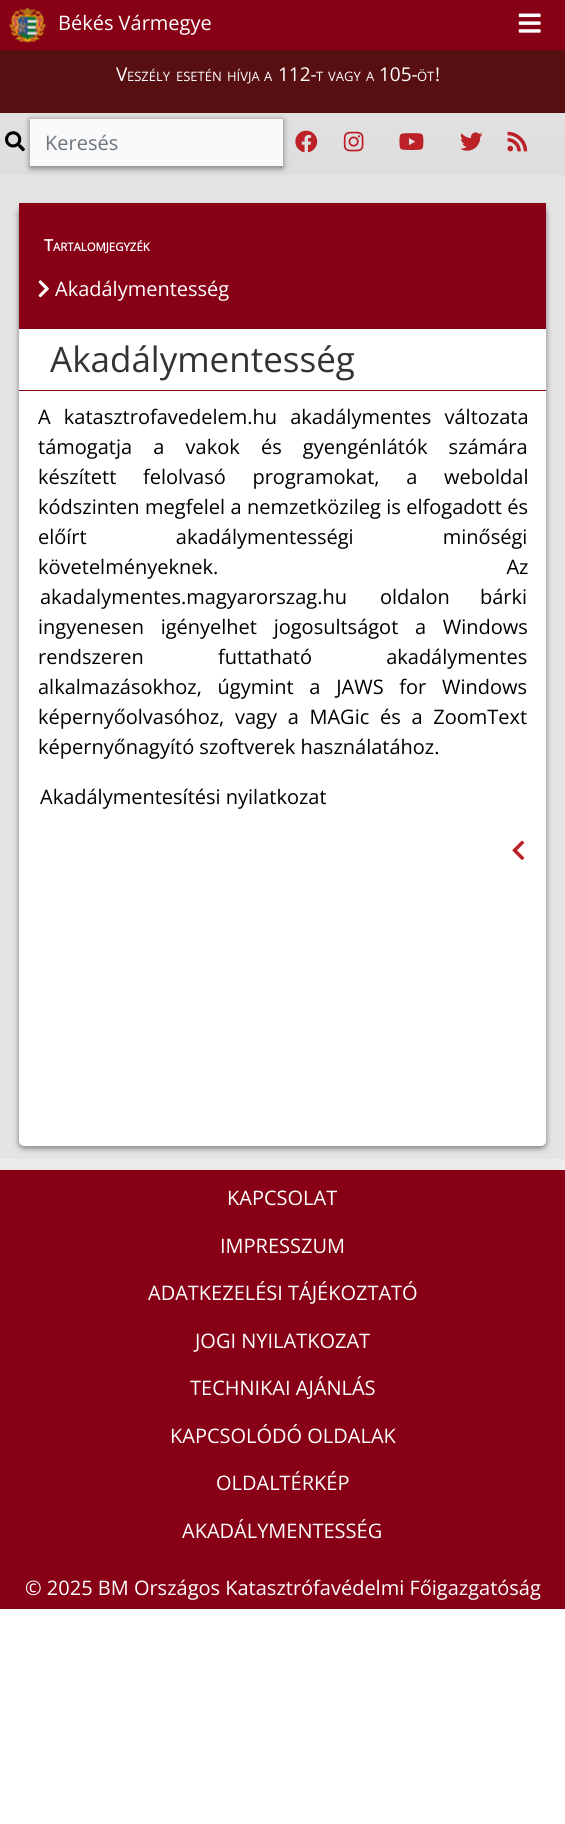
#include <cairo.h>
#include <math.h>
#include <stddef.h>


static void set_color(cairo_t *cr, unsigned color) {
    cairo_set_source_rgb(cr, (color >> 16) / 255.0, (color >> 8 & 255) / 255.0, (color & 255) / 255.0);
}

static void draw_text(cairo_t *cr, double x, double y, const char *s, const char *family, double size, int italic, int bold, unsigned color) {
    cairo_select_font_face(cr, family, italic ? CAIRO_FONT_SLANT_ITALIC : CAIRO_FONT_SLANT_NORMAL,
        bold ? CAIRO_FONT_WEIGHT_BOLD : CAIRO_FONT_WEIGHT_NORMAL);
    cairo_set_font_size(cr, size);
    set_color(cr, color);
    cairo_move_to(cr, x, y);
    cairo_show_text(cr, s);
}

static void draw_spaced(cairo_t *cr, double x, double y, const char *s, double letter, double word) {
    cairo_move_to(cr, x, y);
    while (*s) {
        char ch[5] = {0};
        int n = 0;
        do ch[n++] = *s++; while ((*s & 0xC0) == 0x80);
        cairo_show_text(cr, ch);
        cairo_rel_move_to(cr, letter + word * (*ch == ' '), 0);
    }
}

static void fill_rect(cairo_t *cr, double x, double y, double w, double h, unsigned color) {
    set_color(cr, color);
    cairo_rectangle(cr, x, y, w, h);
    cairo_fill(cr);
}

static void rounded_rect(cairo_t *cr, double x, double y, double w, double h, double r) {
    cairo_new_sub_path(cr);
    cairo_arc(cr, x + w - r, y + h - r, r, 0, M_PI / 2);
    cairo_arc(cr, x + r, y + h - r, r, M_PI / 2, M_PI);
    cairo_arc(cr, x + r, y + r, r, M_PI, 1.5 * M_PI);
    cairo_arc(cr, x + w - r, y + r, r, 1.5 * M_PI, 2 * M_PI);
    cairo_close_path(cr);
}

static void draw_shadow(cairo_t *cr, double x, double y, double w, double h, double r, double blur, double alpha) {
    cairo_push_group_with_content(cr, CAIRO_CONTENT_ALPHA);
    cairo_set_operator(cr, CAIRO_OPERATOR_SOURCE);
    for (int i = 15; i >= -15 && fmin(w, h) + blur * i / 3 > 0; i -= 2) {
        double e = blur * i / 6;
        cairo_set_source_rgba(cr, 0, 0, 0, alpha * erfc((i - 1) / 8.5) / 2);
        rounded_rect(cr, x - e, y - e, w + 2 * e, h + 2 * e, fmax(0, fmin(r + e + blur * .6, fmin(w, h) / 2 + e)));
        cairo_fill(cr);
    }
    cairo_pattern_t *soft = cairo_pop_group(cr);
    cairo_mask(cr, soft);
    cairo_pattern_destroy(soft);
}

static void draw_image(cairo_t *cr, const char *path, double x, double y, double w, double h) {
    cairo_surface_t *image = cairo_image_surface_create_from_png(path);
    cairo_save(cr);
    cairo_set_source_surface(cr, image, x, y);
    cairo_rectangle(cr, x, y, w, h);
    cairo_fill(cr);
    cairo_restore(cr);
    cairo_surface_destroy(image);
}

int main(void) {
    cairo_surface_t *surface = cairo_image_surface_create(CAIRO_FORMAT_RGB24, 565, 1824);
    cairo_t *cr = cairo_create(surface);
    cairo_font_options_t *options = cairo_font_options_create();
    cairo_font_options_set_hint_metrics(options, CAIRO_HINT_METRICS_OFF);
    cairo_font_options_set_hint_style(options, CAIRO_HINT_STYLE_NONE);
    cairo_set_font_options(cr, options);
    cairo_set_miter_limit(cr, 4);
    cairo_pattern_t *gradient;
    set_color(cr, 0xFFFFFF);
    cairo_paint(cr);
    gradient = cairo_pattern_create_linear(283, 0, 283, 175);
    cairo_pattern_add_color_stop_rgba(gradient, 0, 0.914, 0.914, 0.914, 1);
    cairo_pattern_add_color_stop_rgba(gradient, 1, 0.867, 0.867, 0.867, 1);
    cairo_set_source(cr, gradient);
    cairo_pattern_destroy(gradient);
    cairo_rectangle(cr, 0, 113, 565, 62);
    cairo_fill(cr);
    fill_rect(cr, 0, 0, 565, 50, 0x880015);
    draw_image(cr, "assets/img1.png", 9, 7, 37, 36);
    draw_text(cr, 58, 30, "Békés Vármegye", "Open Sans", 20, 0, 0, 0xFFFFFF);
    draw_image(cr, "assets/img2.png", 518, 13, 23, 20);
    fill_rect(cr, 0, 50, 565, 63, 0x570F12);
    draw_text(cr, 116, 81, "V", "Open Sans", 19, 0, 0, 0xFFFFFF);
    draw_text(cr, 127, 81, "ESZÉLY", "Open Sans", 13, 0, 0, 0xFFFFFF);
    draw_text(cr, 176, 81, "ESETÉN", "Open Sans", 13, 0, 0, 0xFFFFFF);
    draw_text(cr, 227, 81, "HÍVJA", "Open Sans", 13, 0, 0, 0xFFFFFF);
    draw_text(cr, 264, 81, "A", "Open Sans", 13, 0, 0, 0xFFFFFF);
    draw_text(cr, 278, 81, "112-", "Open Sans", 19, 0, 0, 0xFFFFFF);
    draw_text(cr, 316, 81, "T", "Open Sans", 13, 0, 0, 0xFFFFFF);
    draw_text(cr, 328, 81, "VAGY", "Open Sans", 13, 0, 0, 0xFFFFFF);
    draw_text(cr, 366, 81, "A", "Open Sans", 13, 0, 0, 0xFFFFFF);
    draw_text(cr, 379, 81, "105-", "Open Sans", 19, 0, 0, 0xFFFFFF);
    draw_text(cr, 417, 81, "ÖT", "Open Sans", 13, 0, 0, 0xFFFFFF);
    draw_text(cr, 435, 81, "!", "Open Sans", 19, 0, 0, 0xFFFFFF);
    draw_image(cr, "assets/img3.png", 5, 131, 20, 21);
    fill_rect(cr, 0, 175, 565, 984, 0xE4E4E4);
    set_color(cr, 0x777777);
    draw_shadow(cr, 30, 120, 253, 48, 0, 3, 1);
    fill_rect(cr, 30, 119, 253, 47, 0xFAFAFA);
    draw_text(cr, 45, 150, "Keresés", "Open Sans", 20, 0, 0, 0x6C757D);
    draw_image(cr, "assets/img4.png", 295, 130, 23, 23);
    draw_image(cr, "assets/img5.png", 343, 131, 21, 21);
    draw_image(cr, "assets/img6.png", 399, 133, 25, 17);
    draw_image(cr, "assets/img7.png", 460, 132, 23, 19);
    draw_image(cr, "assets/img8.png", 507, 131, 21, 21);
    gradient = cairo_pattern_create_linear(282, 175, 283, 1170);
    cairo_pattern_add_color_stop_rgba(gradient, 0, 1, 1, 1, 1);
    cairo_pattern_add_color_stop_rgba(gradient, 1, 0.922, 0.922, 0.922, 1);
    cairo_set_source(cr, gradient);
    cairo_pattern_destroy(gradient);
    cairo_rectangle(cr, 0, 1159, 565, 11);
    cairo_fill(cr);
    set_color(cr, 0x777777);
    draw_shadow(cr, 19, 208, 527, 940, 5, 3, 1);
    set_color(cr, 0xFFFFFF);
    rounded_rect(cr, 19, 206, 527, 940, 5);
    cairo_fill(cr);
    fill_rect(cr, 19, 203, 527, 126, 0x880015);
    draw_text(cr, 44, 251, "T", "Open Sans", 16, 0, 1, 0xFFFFFF);
    draw_text(cr, 53, 251, "ARTALOMJEGYZÉK", "Open Sans", 11.4, 0, 1, 0xFFFFFF);
    draw_image(cr, "assets/img9.png", 38, 280, 11, 18);
    draw_text(cr, 55, 296, "Akadálymentesség", "Open Sans", 20, 0, 0, 0xFFFFFF);
    fill_rect(cr, 19, 390, 527, 1, 0x880015);
    draw_text(cr, 50, 372, "Akadálymentesség", "Open Sans", 35, 0, 0, 0x333333);
    cairo_set_font_size(cr, 20);
    set_color(cr, 0x000000);
    draw_spaced(cr, 38, 424, "A katasztrofavedelem.hu akadálymentes változata", 0, 8);
    draw_spaced(cr, 38, 454, "támogatja a vakok és gyengénlátók számára", 0, 16);
    draw_spaced(cr, 38, 484, "készített felolvasó programokat, a weboldal", 0, 21.5);
    draw_spaced(cr, 38, 514, "kódszinten megfelel a nemzetközileg is elfogadott és", 0, 0.25);
    draw_spaced(cr, 38, 544, "előírt akadálymentességi minőségi", 0, 84);
    draw_spaced(cr, 38, 574, "követelményeknek. Az", 0, 283);
    draw_text(cr, 40, 604, "akadalymentes.magyarorszag.hu", "Open Sans", 20, 0, 0, 0x000000);
    draw_spaced(cr, 380, 604, "oldalon bárki", 0, 25);
    draw_spaced(cr, 38, 634, "ingyenesen igényelhet jogosultságot a Windows", 0, 11.5);
    draw_spaced(cr, 38, 664, "rendszeren futtatható akadálymentes", 0, 69);
    draw_spaced(cr, 38, 694, "alkalmazásokhoz, úgymint a JAWS for Windows", 0, 10.5);
    draw_spaced(cr, 38, 724, "képernyőolvasóhoz, vagy a MAGic és a ZoomText", 0, 5.5);
    draw_text(cr, 38, 754, "képernyőnagyító szoftverek használatához.", "Open Sans", 20, 0, 0, 0x000000);
    draw_text(cr, 40, 804, "Akadálymentesítési nyilatkozat", "Open Sans", 20, 0, 0, 0x000000);
    draw_image(cr, "assets/img10.png", 512, 840, 13, 20);
    fill_rect(cr, 0, 1170, 565, 439, 0x880015);
    draw_text(cr, 227, 1205, "KAPCSOLAT", "Open Sans", 20, 0, 0, 0xFFFFFF);
    draw_text(cr, 220, 1253, "IMPRESSZUM", "Open Sans", 20, 0, 0, 0xFFFFFF);
    draw_text(cr, 148, 1300, "ADATKEZELÉSI TÁJÉKOZTATÓ", "Open Sans", 20, 0, 0, 0xFFFFFF);
    draw_text(cr, 195, 1348, "JOGI NYILATKOZAT", "Open Sans", 20, 0, 0, 0xFFFFFF);
    draw_text(cr, 190, 1395, "TECHNIKAI AJÁNLÁS", "Open Sans", 20, 0, 0, 0xFFFFFF);
    draw_text(cr, 170, 1443, "KAPCSOLÓDÓ OLDALAK", "Open Sans", 20, 0, 0, 0xFFFFFF);
    draw_text(cr, 216, 1490, "OLDALTÉRKÉP", "Open Sans", 20, 0, 0, 0xFFFFFF);
    draw_text(cr, 182, 1538, "AKADÁLYMENTESSÉG", "Open Sans", 20, 0, 0, 0xFFFFFF);
    draw_text(cr, 25, 1595, "© 2025 BM Országos Katasztrófavédelmi Főigazgatóság", "Open Sans", 20, 0, 0, 0xFFFFFF);
    cairo_surface_write_to_png(surface, "output.png");
    cairo_font_options_destroy(options);
    cairo_destroy(cr);
    cairo_surface_destroy(surface);
    return 0;
}
